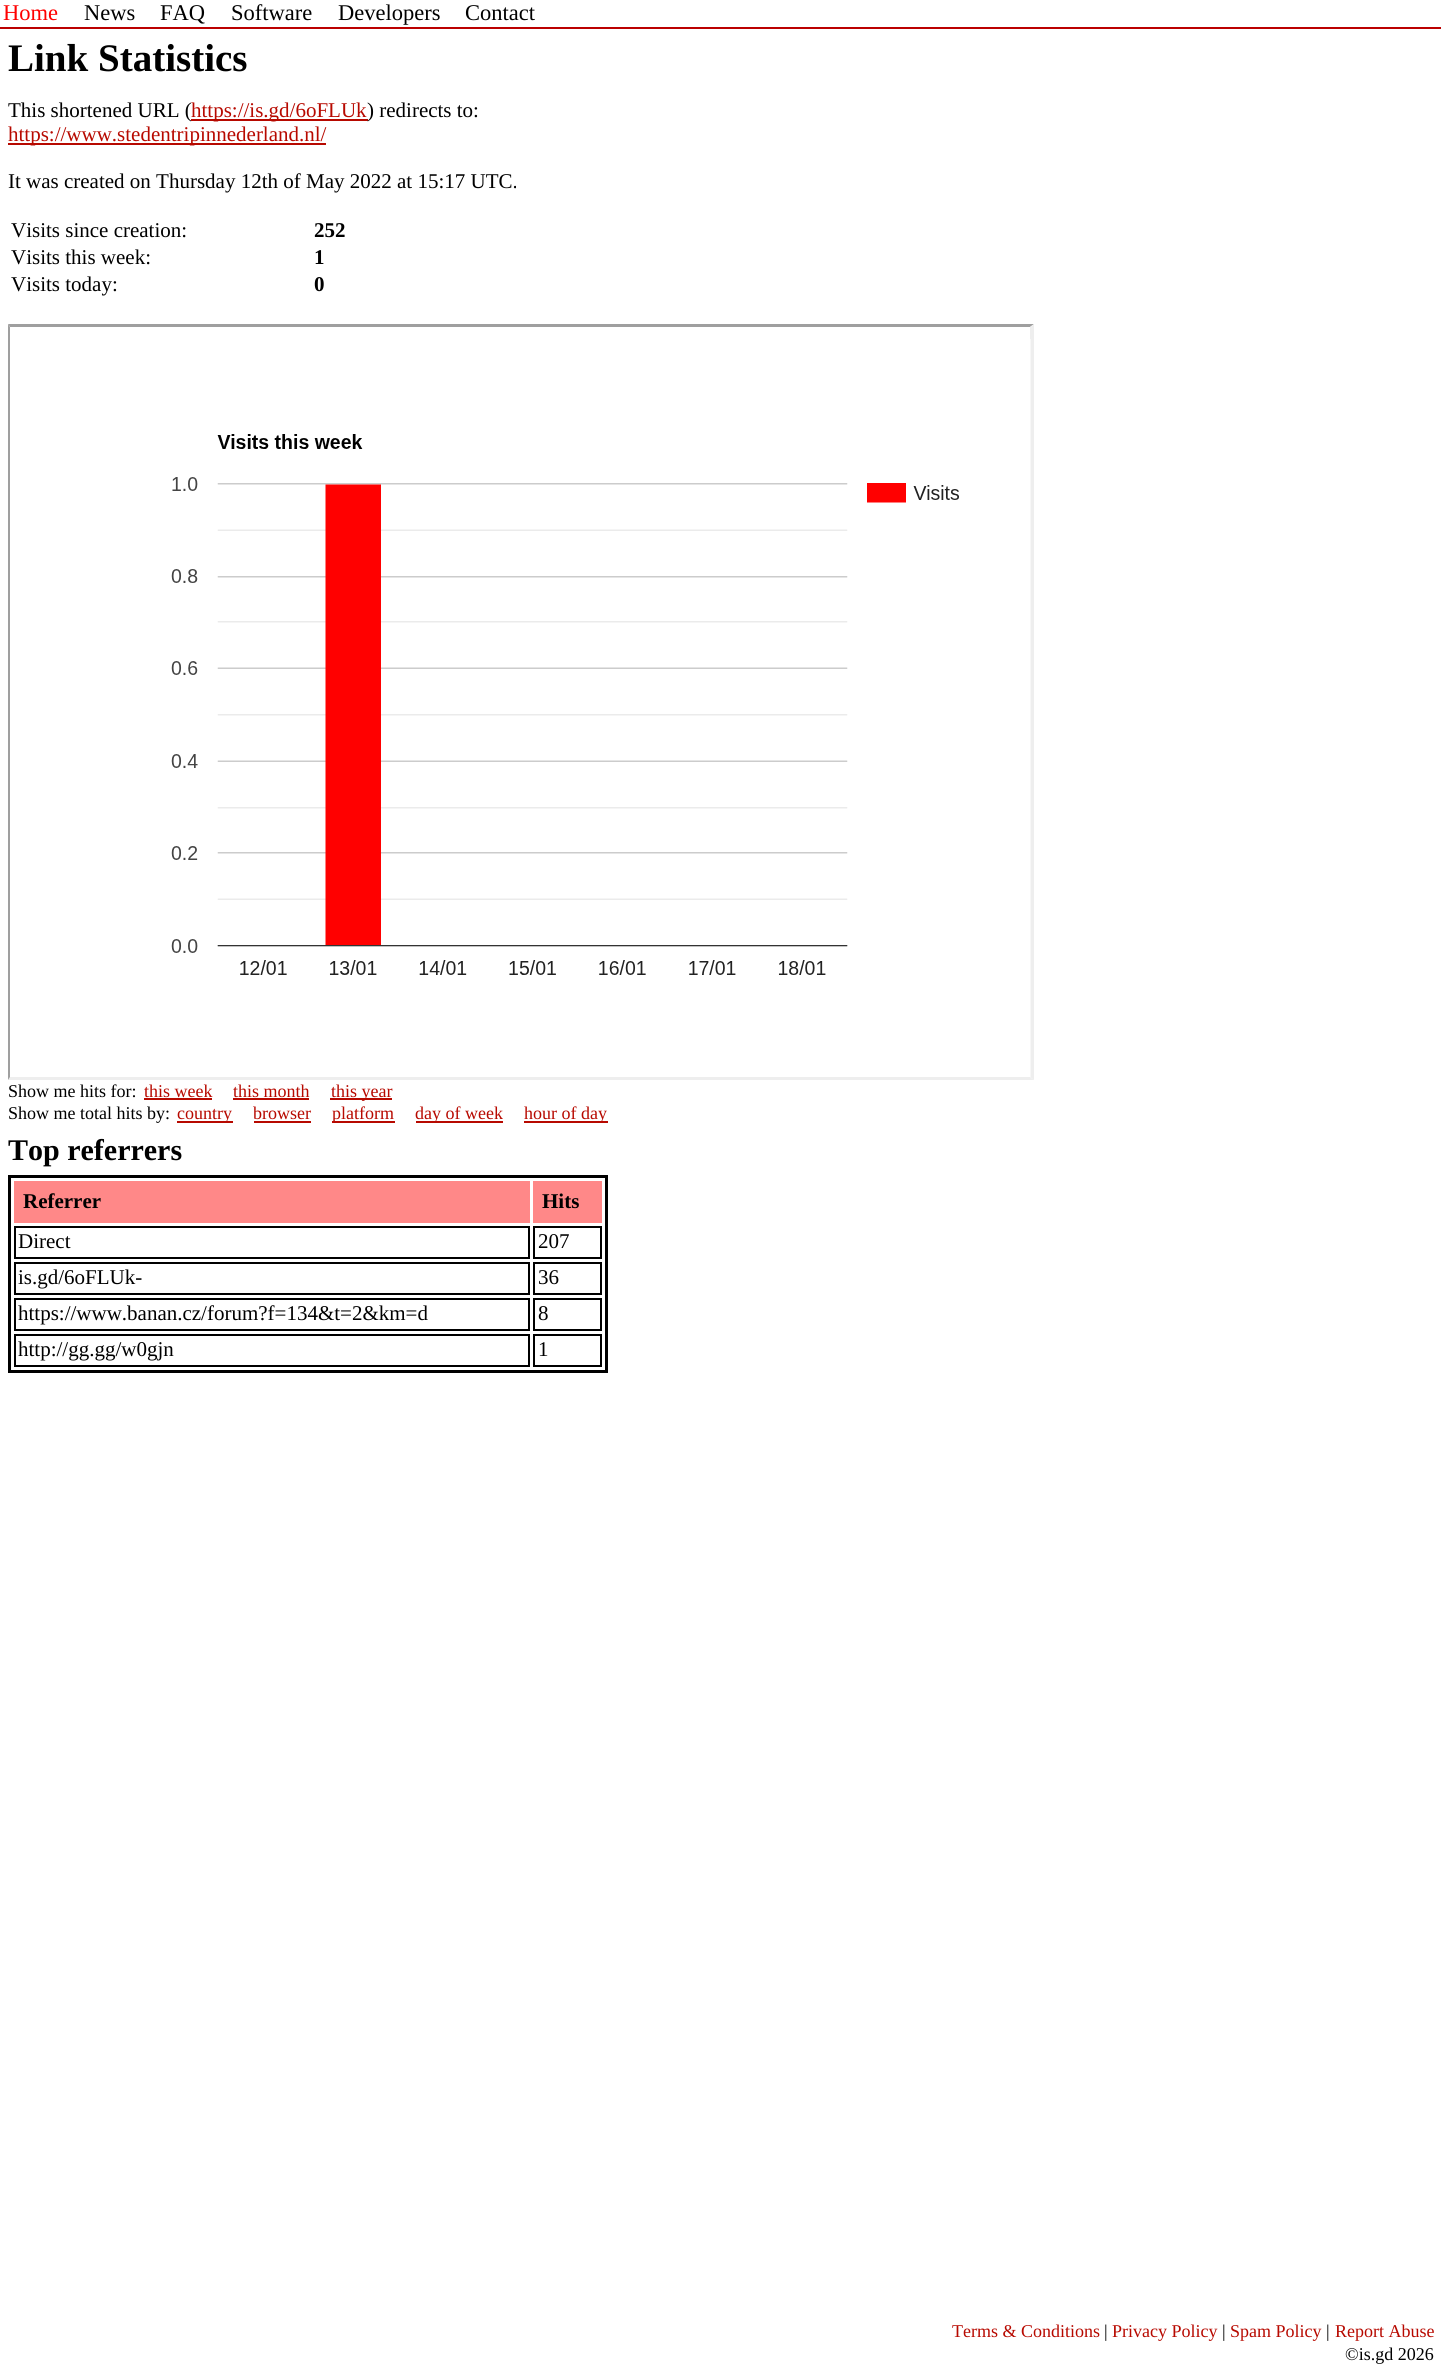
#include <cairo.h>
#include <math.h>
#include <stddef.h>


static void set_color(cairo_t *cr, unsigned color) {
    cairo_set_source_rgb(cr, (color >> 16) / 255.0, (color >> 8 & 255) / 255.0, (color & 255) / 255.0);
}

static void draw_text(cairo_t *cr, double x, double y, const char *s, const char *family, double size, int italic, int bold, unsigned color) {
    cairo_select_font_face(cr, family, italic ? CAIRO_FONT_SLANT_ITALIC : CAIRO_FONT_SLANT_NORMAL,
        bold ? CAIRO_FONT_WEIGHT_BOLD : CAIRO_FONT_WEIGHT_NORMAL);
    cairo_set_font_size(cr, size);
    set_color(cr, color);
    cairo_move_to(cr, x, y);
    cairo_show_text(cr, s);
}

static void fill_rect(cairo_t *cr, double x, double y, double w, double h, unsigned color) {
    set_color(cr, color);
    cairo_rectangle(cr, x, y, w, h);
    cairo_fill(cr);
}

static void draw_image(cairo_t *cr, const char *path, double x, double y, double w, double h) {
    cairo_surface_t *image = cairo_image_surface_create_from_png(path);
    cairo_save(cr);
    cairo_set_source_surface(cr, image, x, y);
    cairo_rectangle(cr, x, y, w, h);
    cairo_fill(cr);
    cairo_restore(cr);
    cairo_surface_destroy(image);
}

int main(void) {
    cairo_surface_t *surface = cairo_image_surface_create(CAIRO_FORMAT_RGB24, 1441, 2371);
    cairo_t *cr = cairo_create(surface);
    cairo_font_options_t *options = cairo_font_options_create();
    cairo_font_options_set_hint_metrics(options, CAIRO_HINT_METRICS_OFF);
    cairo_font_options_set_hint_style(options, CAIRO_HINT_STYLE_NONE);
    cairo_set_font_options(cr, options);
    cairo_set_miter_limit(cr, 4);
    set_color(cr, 0xFFFFFF);
    cairo_paint(cr);
    fill_rect(cr, 0, 27, 1441, 2, 0xBB0000);
    draw_text(cr, 3, 20, "Home", "Liberation Serif", 22.5, 0, 0, 0xFF0000);
    draw_text(cr, 84, 20, "News", "Liberation Serif", 22.5, 0, 0, 0x000000);
    draw_text(cr, 160, 20, "FAQ", "Liberation Serif", 22.5, 0, 0, 0x000000);
    draw_text(cr, 231, 20, "Software", "Liberation Serif", 22.5, 0, 0, 0x000000);
    draw_text(cr, 338, 20, "Developers", "Liberation Serif", 22.5, 0, 0, 0x000000);
    draw_text(cr, 465, 20, "Contact", "Liberation Serif", 22.5, 0, 0, 0x000000);
    draw_text(cr, 8, 71, "Link Statistics", "Liberation Serif", 39, 0, 1, 0x000000);
    draw_text(cr, 8, 117, "This shortened URL (", "Liberation Serif", 21, 0, 0, 0x000000);
    fill_rect(cr, 191, 119, 177, 2, 0xB70900);
    draw_text(cr, 191, 117, "https://is.gd/6oFLUk", "Liberation Serif", 21, 0, 0, 0xB70900);
    draw_text(cr, 367, 117, ") redirects to:", "Liberation Serif", 21, 0, 0, 0x000000);
    fill_rect(cr, 8, 143, 318, 2, 0xB70900);
    draw_text(cr, 8, 141, "https://www.stedentripinnederland.nl/", "Liberation Serif", 21, 0, 0, 0xB70900);
    draw_text(cr, 8, 188, "It was created on Thursday 12th of May 2022 at 15:17 UTC.", "Liberation Serif", 21, 0, 0, 0x000000);
    draw_text(cr, 11, 237, "Visits since creation:", "Liberation Serif", 21, 0, 0, 0x000000);
    draw_text(cr, 314, 237, "252", "Liberation Serif", 21, 0, 1, 0x000000);
    draw_text(cr, 11, 264, "Visits this week:", "Liberation Serif", 21, 0, 0, 0x000000);
    draw_text(cr, 314, 264, "1", "Liberation Serif", 21, 0, 1, 0x000000);
    draw_text(cr, 11, 291, "Visits today:", "Liberation Serif", 21, 0, 0, 0x000000);
    draw_text(cr, 314, 291, "0", "Liberation Serif", 21, 0, 1, 0x000000);
    set_color(cr, 0x9F9F9F);
    cairo_new_path(cr);
    cairo_move_to(cr, 8, 324);
    cairo_line_to(cr, 1034, 324);
    cairo_line_to(cr, 1030, 327);
    cairo_line_to(cr, 10, 327);
    cairo_close_path(cr);
    cairo_fill(cr);
    set_color(cr, 0xEEEEEE);
    cairo_new_path(cr);
    cairo_move_to(cr, 1034, 324);
    cairo_line_to(cr, 1034, 1080);
    cairo_line_to(cr, 1030, 1077);
    cairo_line_to(cr, 1030, 327);
    cairo_close_path(cr);
    cairo_fill(cr);
    cairo_new_path(cr);
    cairo_move_to(cr, 1034, 1080);
    cairo_line_to(cr, 8, 1080);
    cairo_line_to(cr, 10, 1077);
    cairo_line_to(cr, 1030, 1077);
    cairo_close_path(cr);
    cairo_fill(cr);
    set_color(cr, 0x9F9F9F);
    cairo_new_path(cr);
    cairo_move_to(cr, 8, 1080);
    cairo_line_to(cr, 8, 324);
    cairo_line_to(cr, 10, 327);
    cairo_line_to(cr, 10, 1077);
    cairo_close_path(cr);
    cairo_fill(cr);
    draw_image(cr, "assets/img1.png", 171, 339, 860, 738);
    draw_text(cr, 8, 1097, "Show me hits for:", "Liberation Serif", 18, 0, 0, 0x000000);
    draw_text(cr, 144, 1097, "this week", "Liberation Serif", 18, 0, 0, 0xB70900);
    fill_rect(cr, 144, 1098, 68, 2, 0xB70900);
    draw_text(cr, 233, 1097, "this month", "Liberation Serif", 18, 0, 0, 0xB70900);
    fill_rect(cr, 233, 1098, 76, 2, 0xB70900);
    fill_rect(cr, 330, 1098, 62, 2, 0xB70900);
    draw_text(cr, 331, 1097, "this year", "Liberation Serif", 18, 0, 0, 0xB70900);
    draw_text(cr, 8, 1119, "Show me total hits by:", "Liberation Serif", 18, 0, 0, 0x000000);
    fill_rect(cr, 177, 1121, 56, 2, 0xB70900);
    draw_text(cr, 177, 1119, "country", "Liberation Serif", 18, 0, 0, 0xB70900);
    draw_text(cr, 253, 1119, "browser", "Liberation Serif", 18, 0, 0, 0xB70900);
    fill_rect(cr, 254, 1121, 57, 2, 0xB70900);
    fill_rect(cr, 332, 1121, 63, 2, 0xB70900);
    draw_text(cr, 332, 1119, "platform", "Liberation Serif", 18, 0, 0, 0xB70900);
    fill_rect(cr, 416, 1121, 87, 2, 0xB70900);
    draw_text(cr, 415, 1119, "day of week", "Liberation Serif", 18, 0, 0, 0xB70900);
    fill_rect(cr, 524, 1121, 84, 2, 0xB70900);
    draw_text(cr, 524, 1119, "hour of day", "Liberation Serif", 18, 0, 0, 0xB70900);
    draw_text(cr, 8, 1160, "Top referrers", "Liberation Serif", 30, 0, 1, 0x000000);
    cairo_rectangle(cr, 9.5, 1176.5, 597, 195);
    cairo_set_line_width(cr, 3);
    cairo_stroke(cr);
    fill_rect(cr, 14, 1181, 516, 42, 0xFF8888);
    draw_text(cr, 23, 1208, "Referrer", "Liberation Serif", 21, 0, 1, 0x000000);
    fill_rect(cr, 533, 1181, 69, 42, 0xFF8888);
    draw_text(cr, 542, 1208, "Hits", "Liberation Serif", 21, 0, 1, 0x000000);
    cairo_rectangle(cr, 15, 1227, 514, 31);
    cairo_set_line_width(cr, 2);
    cairo_stroke(cr);
    draw_text(cr, 18, 1248, "Direct", "Liberation Serif", 21, 0, 0, 0x000000);
    cairo_rectangle(cr, 534, 1227, 67, 31);
    cairo_stroke(cr);
    draw_text(cr, 538, 1248, "207", "Liberation Serif", 21, 0, 0, 0x000000);
    cairo_rectangle(cr, 15, 1263, 514, 31);
    cairo_stroke(cr);
    draw_text(cr, 18, 1284, "is.gd/6oFLUk-", "Liberation Serif", 21, 0, 0, 0x000000);
    cairo_rectangle(cr, 534, 1263, 67, 31);
    cairo_stroke(cr);
    draw_text(cr, 538, 1284, "36", "Liberation Serif", 21, 0, 0, 0x000000);
    cairo_rectangle(cr, 15, 1299, 514, 31);
    cairo_stroke(cr);
    draw_text(cr, 18, 1320, "https://www.banan.cz/forum?f=134&t=2&km=d", "Liberation Serif", 21, 0, 0, 0x000000);
    cairo_rectangle(cr, 534, 1299, 67, 31);
    cairo_stroke(cr);
    draw_text(cr, 538, 1320, "8", "Liberation Serif", 21, 0, 0, 0x000000);
    cairo_rectangle(cr, 15, 1335, 514, 31);
    cairo_stroke(cr);
    draw_text(cr, 18, 1356, "http://gg.gg/w0gjn", "Liberation Serif", 21, 0, 0, 0x000000);
    cairo_rectangle(cr, 534, 1335, 67, 31);
    cairo_stroke(cr);
    draw_text(cr, 538, 1356, "1", "Liberation Serif", 21, 0, 0, 0x000000);
    draw_text(cr, 952, 2337, "Terms & Conditions", "Liberation Serif", 18, 0, 0, 0xB70900);
    draw_text(cr, 1104, 2337, "|", "Liberation Serif", 18, 0, 0, 0x000000);
    draw_text(cr, 1112, 2337, "Privacy Policy", "Liberation Serif", 18, 0, 0, 0xB70900);
    draw_text(cr, 1222, 2337, "|", "Liberation Serif", 18, 0, 0, 0x000000);
    draw_text(cr, 1230, 2337, "Spam Policy", "Liberation Serif", 18, 0, 0, 0xB70900);
    draw_text(cr, 1326, 2337, "|", "Liberation Serif", 18, 0, 0, 0x000000);
    draw_text(cr, 1335, 2337, "Report Abuse", "Liberation Serif", 18, 0, 0, 0xB70900);
    draw_text(cr, 1345, 2360, "©is.gd 2026", "Liberation Serif", 18, 0, 0, 0x000000);
    cairo_surface_write_to_png(surface, "output.png");
    cairo_font_options_destroy(options);
    cairo_destroy(cr);
    cairo_surface_destroy(surface);
    return 0;
}
